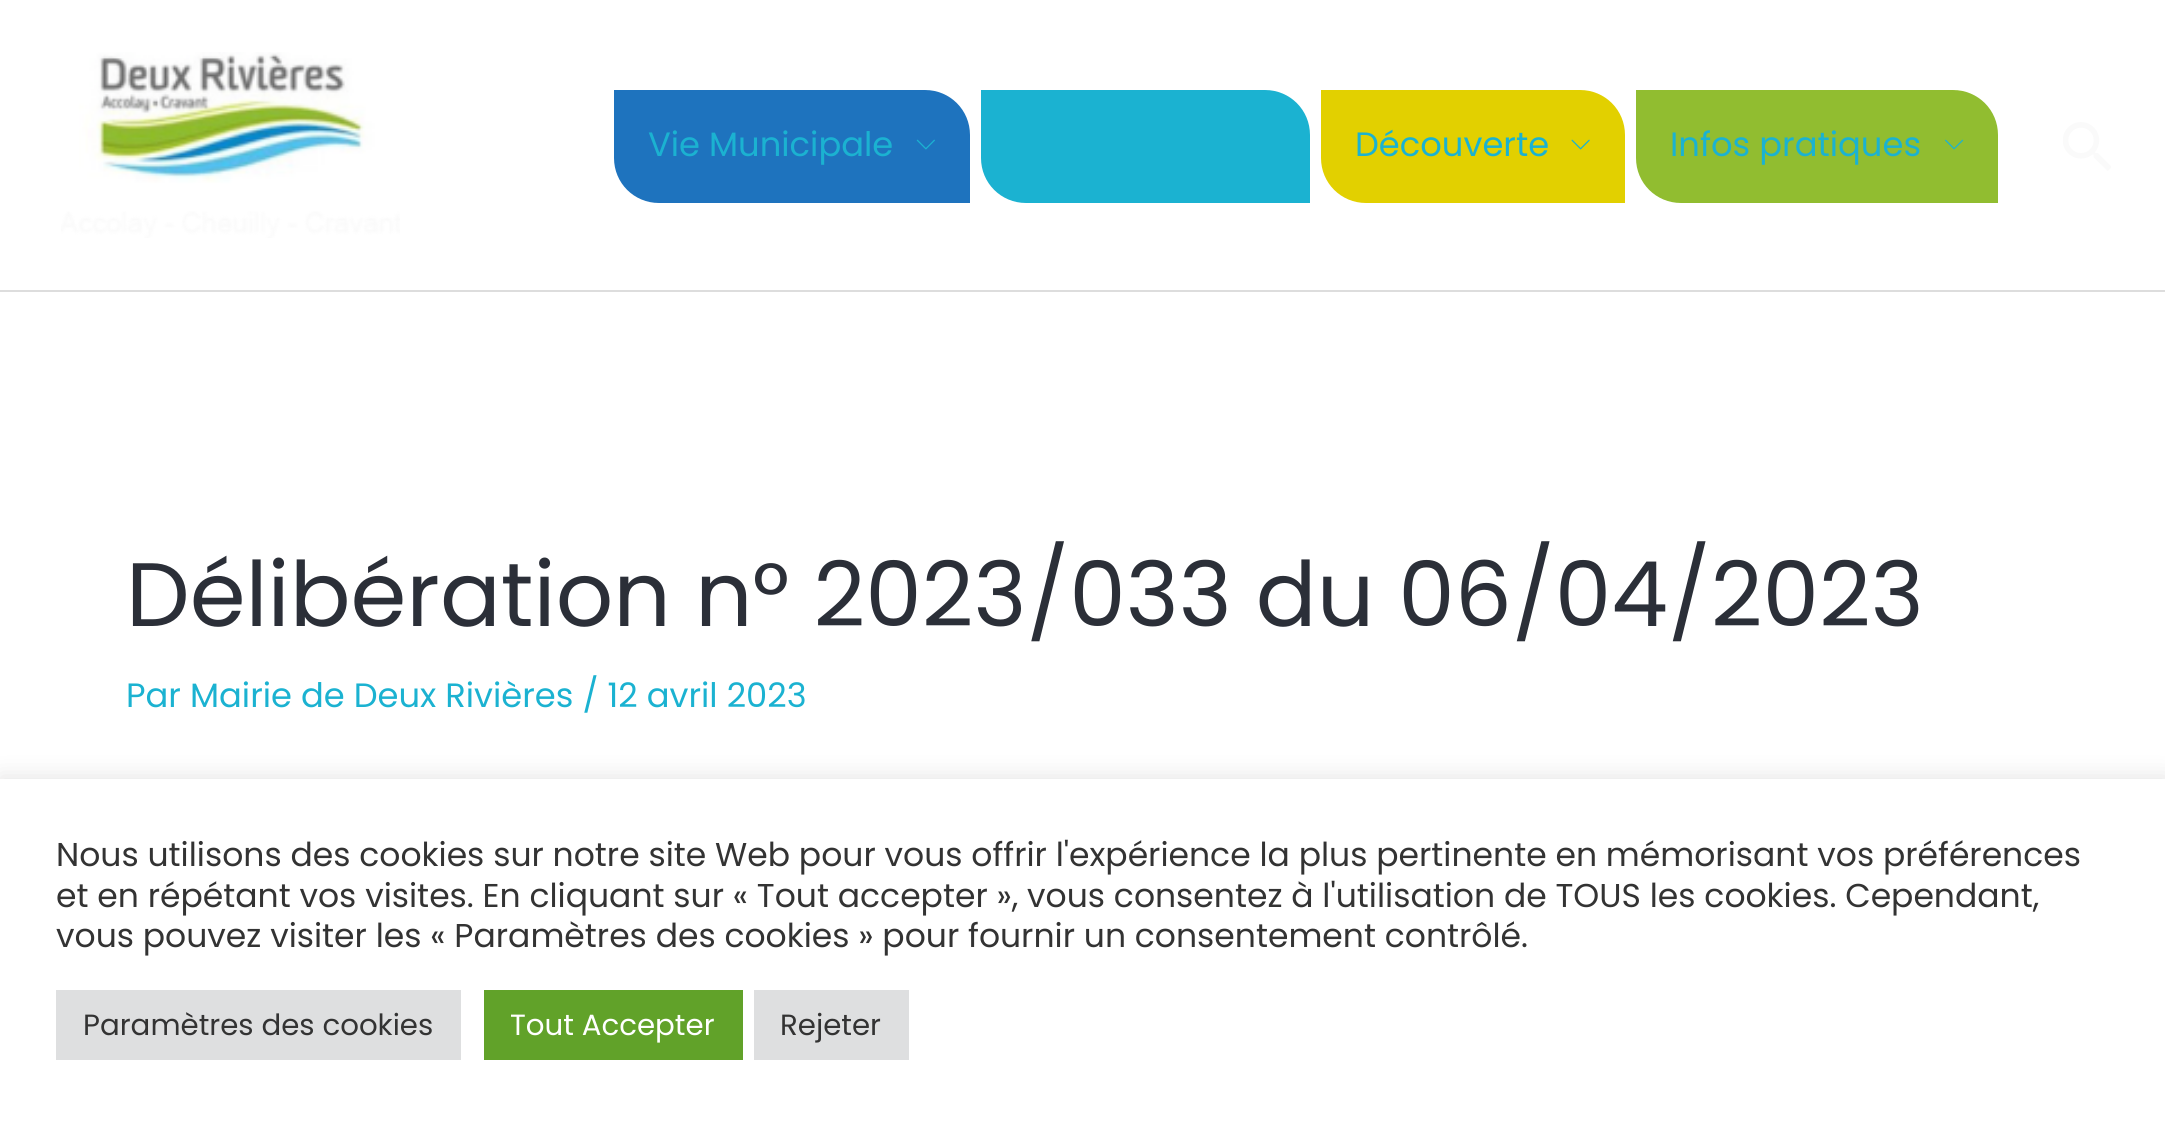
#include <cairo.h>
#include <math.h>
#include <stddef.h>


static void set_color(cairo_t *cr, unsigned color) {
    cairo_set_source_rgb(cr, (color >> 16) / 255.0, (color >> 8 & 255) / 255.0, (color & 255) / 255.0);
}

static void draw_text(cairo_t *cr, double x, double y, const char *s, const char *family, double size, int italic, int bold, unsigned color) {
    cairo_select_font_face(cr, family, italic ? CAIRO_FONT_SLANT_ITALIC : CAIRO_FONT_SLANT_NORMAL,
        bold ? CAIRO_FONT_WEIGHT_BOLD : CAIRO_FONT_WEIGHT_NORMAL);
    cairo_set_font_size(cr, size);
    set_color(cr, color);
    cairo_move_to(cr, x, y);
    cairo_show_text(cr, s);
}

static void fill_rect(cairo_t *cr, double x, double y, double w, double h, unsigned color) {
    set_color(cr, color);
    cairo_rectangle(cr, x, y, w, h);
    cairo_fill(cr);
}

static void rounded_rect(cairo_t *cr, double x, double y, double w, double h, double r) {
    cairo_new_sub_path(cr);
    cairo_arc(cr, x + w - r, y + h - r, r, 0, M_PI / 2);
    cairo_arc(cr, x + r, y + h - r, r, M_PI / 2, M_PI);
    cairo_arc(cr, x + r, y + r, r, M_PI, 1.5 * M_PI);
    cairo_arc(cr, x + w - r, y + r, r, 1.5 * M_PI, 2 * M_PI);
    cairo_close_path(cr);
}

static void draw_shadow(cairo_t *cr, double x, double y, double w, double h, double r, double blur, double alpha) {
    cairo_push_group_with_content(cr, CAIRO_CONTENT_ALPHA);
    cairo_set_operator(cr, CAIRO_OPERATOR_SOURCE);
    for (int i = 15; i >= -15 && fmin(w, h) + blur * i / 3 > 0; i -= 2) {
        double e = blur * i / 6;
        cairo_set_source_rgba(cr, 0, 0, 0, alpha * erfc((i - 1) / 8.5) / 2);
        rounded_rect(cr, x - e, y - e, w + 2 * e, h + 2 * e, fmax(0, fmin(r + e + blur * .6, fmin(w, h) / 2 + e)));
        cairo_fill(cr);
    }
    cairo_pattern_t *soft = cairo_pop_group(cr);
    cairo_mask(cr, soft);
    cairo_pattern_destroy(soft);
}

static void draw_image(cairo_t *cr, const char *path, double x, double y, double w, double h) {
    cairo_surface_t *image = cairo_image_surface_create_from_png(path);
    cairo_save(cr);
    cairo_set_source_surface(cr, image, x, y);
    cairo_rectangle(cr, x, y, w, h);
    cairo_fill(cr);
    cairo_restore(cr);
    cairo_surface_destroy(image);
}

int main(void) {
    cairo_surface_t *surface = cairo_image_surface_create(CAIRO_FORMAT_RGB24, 2165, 1127);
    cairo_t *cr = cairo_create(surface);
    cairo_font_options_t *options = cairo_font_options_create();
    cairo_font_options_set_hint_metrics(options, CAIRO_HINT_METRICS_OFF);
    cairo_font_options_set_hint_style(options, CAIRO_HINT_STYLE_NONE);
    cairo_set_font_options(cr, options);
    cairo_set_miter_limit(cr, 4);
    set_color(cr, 0xFFFFFF);
    cairo_paint(cr);
    fill_rect(cr, 0, 290, 2165, 2, 0xDDDDDD);
    draw_image(cr, "assets/img1.png", 61, 52, 339, 186);
    set_color(cr, 0x1E73BE);
    cairo_new_path(cr);
    cairo_move_to(cr, 614, 90);
    cairo_line_to(cr, 925, 90);
    cairo_curve_to(cr, 950, 90, 970, 110, 970, 135);
    cairo_line_to(cr, 970, 203);
    cairo_line_to(cr, 659, 203);
    cairo_curve_to(cr, 634, 203, 614, 183, 614, 158);
    cairo_close_path(cr);
    cairo_fill(cr);
    draw_text(cr, 648, 156, "Vie Municipale", "Poppins", 33.75, 0, 0, 0x1BB2D1);
    draw_image(cr, "assets/img2.png", 916, 139, 19, 11);
    cairo_new_path(cr);
    cairo_move_to(cr, 981, 90);
    cairo_line_to(cr, 1265, 90);
    cairo_curve_to(cr, 1290, 90, 1310, 110, 1310, 135);
    cairo_line_to(cr, 1310, 203);
    cairo_line_to(cr, 1026, 203);
    cairo_curve_to(cr, 1001, 203, 981, 183, 981, 158);
    cairo_close_path(cr);
    cairo_fill(cr);
    set_color(cr, 0xE2D000);
    cairo_new_path(cr);
    cairo_move_to(cr, 1321, 90);
    cairo_line_to(cr, 1580, 90);
    cairo_curve_to(cr, 1605, 90, 1625, 110, 1625, 135);
    cairo_line_to(cr, 1625, 203);
    cairo_line_to(cr, 1366, 203);
    cairo_curve_to(cr, 1341, 203, 1321, 183, 1321, 158);
    cairo_close_path(cr);
    cairo_fill(cr);
    draw_text(cr, 1355, 156, "Découverte", "Poppins", 33.75, 0, 0, 0x1BB2D1);
    draw_image(cr, "assets/img3.png", 1571, 139, 19, 11);
    set_color(cr, 0x91BD30);
    cairo_new_path(cr);
    cairo_move_to(cr, 1636, 90);
    cairo_line_to(cr, 1953, 90);
    cairo_curve_to(cr, 1978, 90, 1998, 110, 1998, 135);
    cairo_line_to(cr, 1998, 203);
    cairo_line_to(cr, 1681, 203);
    cairo_curve_to(cr, 1656, 203, 1636, 183, 1636, 158);
    cairo_close_path(cr);
    cairo_fill(cr);
    draw_text(cr, 1670, 156, "Infos pratiques", "Poppins", 33.75, 0, 0, 0x1BB2D1);
    draw_image(cr, "assets/img4.png", 1945, 139, 19, 11);
    draw_image(cr, "assets/img5.png", 2063, 122, 48, 49);
    draw_text(cr, 126, 626, "Délibération n° 2023/033 du 06/04/2023", "Poppins", 90, 0, 0, 0x2B2F38);
    draw_text(cr, 126, 707, "Par Mairie de Deux Rivières / 12 avril 2023", "Poppins", 33.75, 0, 0, 0x1BB2D1);
    set_color(cr, 0xACABAB);
    draw_shadow(cr, 0, 776, 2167, 349, 0, 11, 0.3);
    fill_rect(cr, 0, 779, 2165, 348, 0xFFFFFF);
    draw_text(cr, 56, 866, "Nous utilisons des cookies sur notre site Web pour vous offrir l'expérience la plus pertinente en mémorisant vos préférences", "Poppins", 33, 0, 0, 0x333333);
    draw_text(cr, 56, 907, "et en répétant vos visites. En cliquant sur « Tout accepter », vous consentez à l'utilisation de TOUS les cookies. Cependant,", "Poppins", 33, 0, 0, 0x333333);
    draw_text(cr, 56, 947, "vous pouvez visiter les « Paramètres des cookies » pour fournir un consentement contrôlé.", "Poppins", 33, 0, 0, 0x333333);
    fill_rect(cr, 56, 990, 405, 70, 0xDEDFE0);
    draw_text(cr, 83, 1035, "Paramètres des cookies", "Poppins", 29.25, 0, 0, 0x333333);
    fill_rect(cr, 484, 990, 259, 70, 0x61A229);
    draw_text(cr, 510, 1035, "Tout Accepter", "Poppins", 29.25, 0, 0, 0xFFFFFF);
    fill_rect(cr, 754, 990, 155, 70, 0xDEDFE0);
    draw_text(cr, 780, 1035, "Rejeter", "Poppins", 29.25, 0, 0, 0x333333);
    cairo_surface_write_to_png(surface, "output.png");
    cairo_font_options_destroy(options);
    cairo_destroy(cr);
    cairo_surface_destroy(surface);
    return 0;
}
